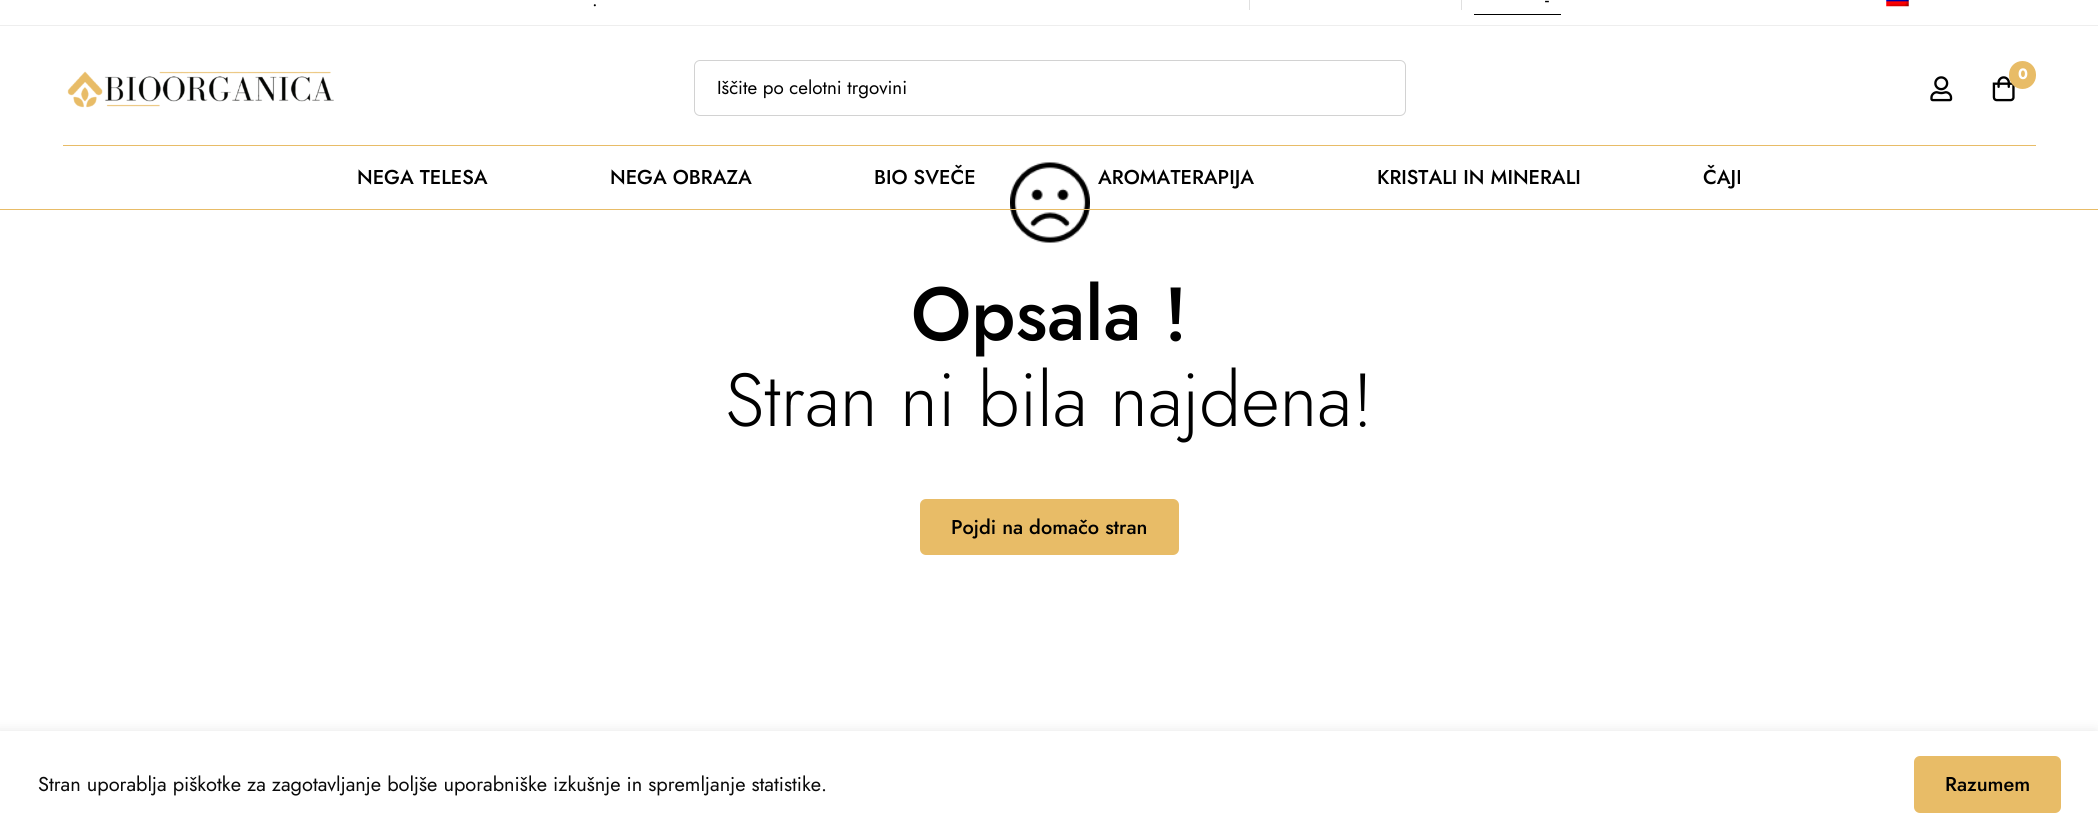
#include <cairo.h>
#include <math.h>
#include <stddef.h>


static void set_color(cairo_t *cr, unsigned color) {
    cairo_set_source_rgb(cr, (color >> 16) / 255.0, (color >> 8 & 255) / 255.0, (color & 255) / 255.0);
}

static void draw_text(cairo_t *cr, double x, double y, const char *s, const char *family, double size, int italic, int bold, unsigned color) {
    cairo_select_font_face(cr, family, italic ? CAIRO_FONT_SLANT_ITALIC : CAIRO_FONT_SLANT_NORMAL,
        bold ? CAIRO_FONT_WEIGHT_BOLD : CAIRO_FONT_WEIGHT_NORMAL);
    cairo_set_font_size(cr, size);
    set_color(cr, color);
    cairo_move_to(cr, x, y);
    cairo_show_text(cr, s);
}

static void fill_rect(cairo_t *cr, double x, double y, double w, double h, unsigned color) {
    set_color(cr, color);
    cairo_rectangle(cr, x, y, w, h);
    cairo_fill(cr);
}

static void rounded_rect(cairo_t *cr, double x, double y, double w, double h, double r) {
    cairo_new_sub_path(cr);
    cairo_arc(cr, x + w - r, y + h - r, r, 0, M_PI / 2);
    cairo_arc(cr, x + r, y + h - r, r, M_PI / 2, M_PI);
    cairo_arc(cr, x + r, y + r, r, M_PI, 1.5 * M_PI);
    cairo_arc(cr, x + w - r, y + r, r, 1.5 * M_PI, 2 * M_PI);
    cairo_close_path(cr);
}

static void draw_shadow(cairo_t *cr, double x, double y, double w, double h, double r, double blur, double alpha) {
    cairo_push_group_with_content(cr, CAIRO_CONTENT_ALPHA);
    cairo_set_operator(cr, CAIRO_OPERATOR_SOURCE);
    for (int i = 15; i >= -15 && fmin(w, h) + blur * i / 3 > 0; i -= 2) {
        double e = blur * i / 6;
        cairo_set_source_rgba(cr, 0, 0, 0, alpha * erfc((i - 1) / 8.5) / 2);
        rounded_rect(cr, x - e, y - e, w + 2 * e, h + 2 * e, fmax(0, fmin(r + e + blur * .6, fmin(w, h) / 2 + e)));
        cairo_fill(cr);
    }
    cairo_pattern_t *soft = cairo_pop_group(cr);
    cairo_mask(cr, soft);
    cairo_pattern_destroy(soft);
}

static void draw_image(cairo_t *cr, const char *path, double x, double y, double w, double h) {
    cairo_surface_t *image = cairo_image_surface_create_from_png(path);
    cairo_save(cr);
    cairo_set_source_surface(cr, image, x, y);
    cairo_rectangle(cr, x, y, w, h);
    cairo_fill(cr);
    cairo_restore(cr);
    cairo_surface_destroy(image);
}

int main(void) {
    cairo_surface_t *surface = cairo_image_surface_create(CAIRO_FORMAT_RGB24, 2098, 837);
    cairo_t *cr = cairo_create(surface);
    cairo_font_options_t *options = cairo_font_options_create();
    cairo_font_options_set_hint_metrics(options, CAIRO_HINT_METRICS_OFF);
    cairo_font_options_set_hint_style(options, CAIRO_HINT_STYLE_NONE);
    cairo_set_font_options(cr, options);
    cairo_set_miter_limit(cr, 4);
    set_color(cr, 0xFFFFFF);
    cairo_paint(cr);
    fill_rect(cr, 0, 25, 2098, 1, 0xEEEEEE);
    fill_rect(cr, 1249, 0, 1, 10, 0xE0E0E0);
    fill_rect(cr, 1461, 0, 1, 10, 0xE0E0E0);
    draw_text(cr, 1545, 6, "-", "Jost", 18.75, 0, 0, 0x000000);
    fill_rect(cr, 1474, 14, 87, 1, 0x000000);
    draw_text(cr, 592, 6, ".", "Jost", 18.75, 0, 0, 0x000000);
    draw_image(cr, "assets/img1.png", 1886, 0, 23, 7);
    draw_image(cr, "assets/img2.png", 67, 71, 267, 37);
    rounded_rect(cr, 694.5, 60.5, 711, 55, 5.5);
    set_color(cr, 0xD2D2D2);
    cairo_set_line_width(cr, 1);
    cairo_stroke(cr);
    draw_text(cr, 717, 94, "Iščite po celotni trgovini", "Jost", 18.75, 0, 0, 0x000000);
    draw_image(cr, "assets/img3.png", 1992, 76, 23, 26);
    set_color(cr, 0xE8BC67);
    rounded_rect(cr, 2009, 61, 27, 28, 13.5);
    cairo_fill(cr);
    draw_text(cr, 2018, 79, "0", "Jost", 15, 0, 1, 0xFFFFFF);
    draw_image(cr, "assets/img4.png", 1930, 76, 23, 26);
    draw_image(cr, "assets/img5.png", 1010, 162, 80, 81);
    fill_rect(cr, 0, 209, 2098, 1, 0xE8BC67);
    fill_rect(cr, 63, 145, 1973, 1, 0xE8BC67);
    draw_text(cr, 357, 184, "NEGA TELESA", "Jost Medium", 20, 0, 0, 0x000000);
    draw_text(cr, 610, 184, "NEGA OBRAZA", "Jost Medium", 20, 0, 0, 0x000000);
    draw_text(cr, 874, 184, "BIO SVEČE", "Jost Medium", 20, 0, 0, 0x000000);
    draw_text(cr, 1098, 184, "AROMATERAPIJA", "Jost Medium", 20, 0, 0, 0x000000);
    draw_text(cr, 1377, 184, "KRISTALI IN MINERALI", "Jost Medium", 20, 0, 0, 0x000000);
    draw_text(cr, 1703, 184, "ČAJI", "Jost Medium", 20, 0, 0, 0x000000);
    draw_text(cr, 911, 340, "Opsala !", "Jost Medium", 75, 0, 0, 0x000000);
    draw_text(cr, 725, 426, "Stran ni bila najdena!", "Jost Light", 75, 0, 0, 0x000000);
    set_color(cr, 0xE8BC67);
    rounded_rect(cr, 920, 499, 259, 56, 6);
    cairo_fill(cr);
    draw_text(cr, 951, 534, "Pojdi na domačo stran", "Jost Medium", 20, 0, 0, 0x000000);
    set_color(cr, 0x000000);
    draw_shadow(cr, -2, 731, 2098, 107, 0, 6, 0.1);
    fill_rect(cr, 0, 731, 2098, 106, 0xFFFFFF);
    draw_text(cr, 38, 791, "Stran uporablja piškotke za zagotavljanje boljše uporabniške izkušnje in spremljanje statistike.", "Jost", 20, 0, 0, 0x0A0A0A);
    set_color(cr, 0xE8BC67);
    rounded_rect(cr, 1914, 756, 147, 57, 6);
    cairo_fill(cr);
    draw_text(cr, 1945, 791, "Razumem", "Jost Medium", 20, 0, 0, 0x000000);
    cairo_surface_write_to_png(surface, "output.png");
    cairo_font_options_destroy(options);
    cairo_destroy(cr);
    cairo_surface_destroy(surface);
    return 0;
}
